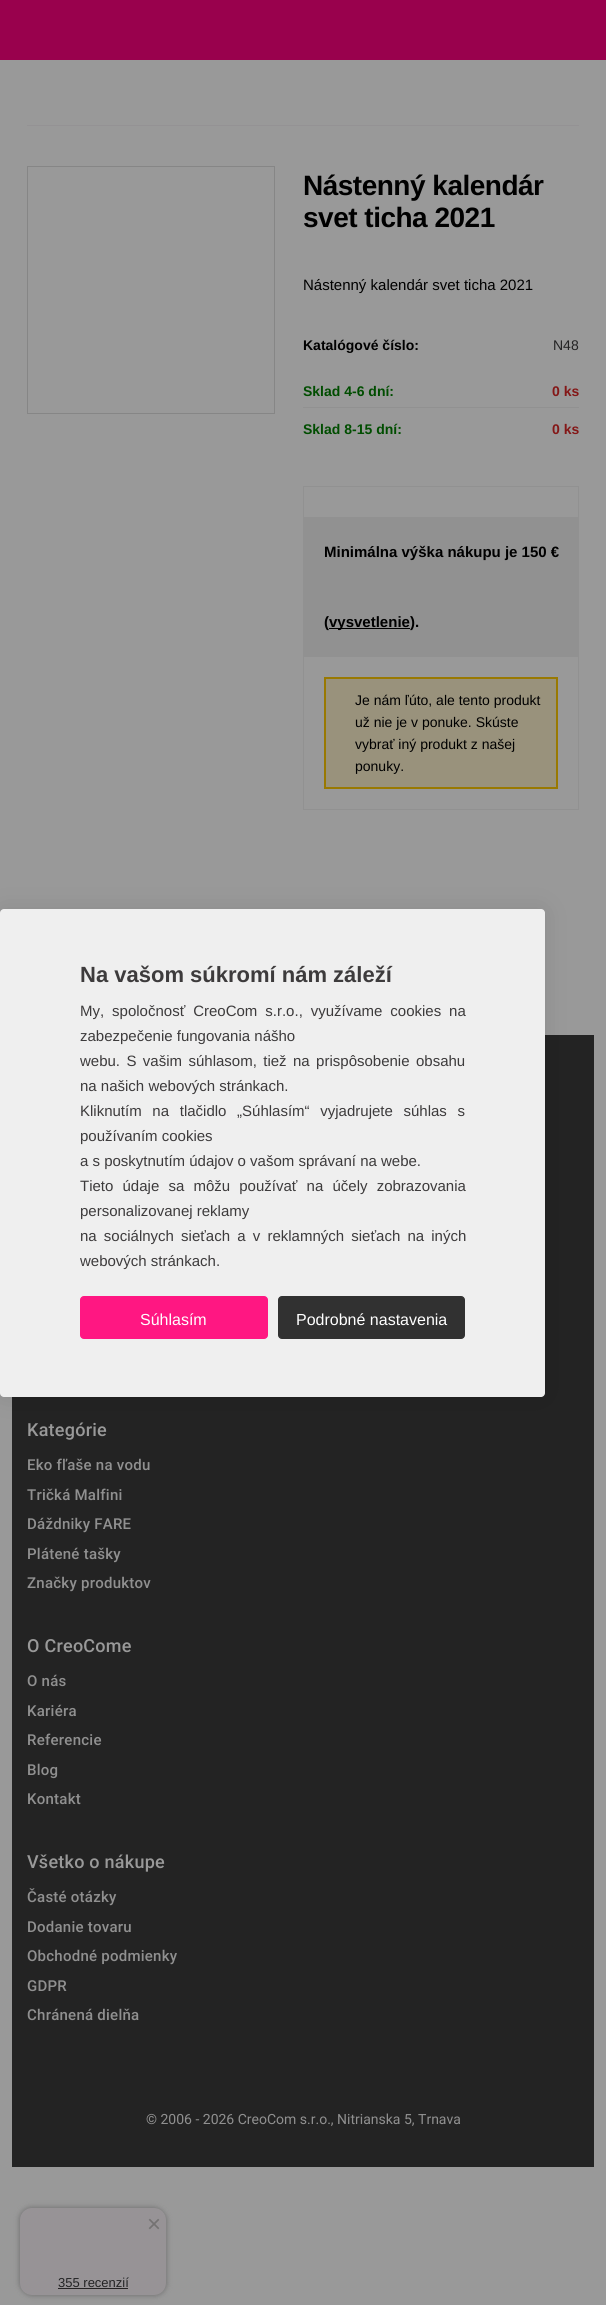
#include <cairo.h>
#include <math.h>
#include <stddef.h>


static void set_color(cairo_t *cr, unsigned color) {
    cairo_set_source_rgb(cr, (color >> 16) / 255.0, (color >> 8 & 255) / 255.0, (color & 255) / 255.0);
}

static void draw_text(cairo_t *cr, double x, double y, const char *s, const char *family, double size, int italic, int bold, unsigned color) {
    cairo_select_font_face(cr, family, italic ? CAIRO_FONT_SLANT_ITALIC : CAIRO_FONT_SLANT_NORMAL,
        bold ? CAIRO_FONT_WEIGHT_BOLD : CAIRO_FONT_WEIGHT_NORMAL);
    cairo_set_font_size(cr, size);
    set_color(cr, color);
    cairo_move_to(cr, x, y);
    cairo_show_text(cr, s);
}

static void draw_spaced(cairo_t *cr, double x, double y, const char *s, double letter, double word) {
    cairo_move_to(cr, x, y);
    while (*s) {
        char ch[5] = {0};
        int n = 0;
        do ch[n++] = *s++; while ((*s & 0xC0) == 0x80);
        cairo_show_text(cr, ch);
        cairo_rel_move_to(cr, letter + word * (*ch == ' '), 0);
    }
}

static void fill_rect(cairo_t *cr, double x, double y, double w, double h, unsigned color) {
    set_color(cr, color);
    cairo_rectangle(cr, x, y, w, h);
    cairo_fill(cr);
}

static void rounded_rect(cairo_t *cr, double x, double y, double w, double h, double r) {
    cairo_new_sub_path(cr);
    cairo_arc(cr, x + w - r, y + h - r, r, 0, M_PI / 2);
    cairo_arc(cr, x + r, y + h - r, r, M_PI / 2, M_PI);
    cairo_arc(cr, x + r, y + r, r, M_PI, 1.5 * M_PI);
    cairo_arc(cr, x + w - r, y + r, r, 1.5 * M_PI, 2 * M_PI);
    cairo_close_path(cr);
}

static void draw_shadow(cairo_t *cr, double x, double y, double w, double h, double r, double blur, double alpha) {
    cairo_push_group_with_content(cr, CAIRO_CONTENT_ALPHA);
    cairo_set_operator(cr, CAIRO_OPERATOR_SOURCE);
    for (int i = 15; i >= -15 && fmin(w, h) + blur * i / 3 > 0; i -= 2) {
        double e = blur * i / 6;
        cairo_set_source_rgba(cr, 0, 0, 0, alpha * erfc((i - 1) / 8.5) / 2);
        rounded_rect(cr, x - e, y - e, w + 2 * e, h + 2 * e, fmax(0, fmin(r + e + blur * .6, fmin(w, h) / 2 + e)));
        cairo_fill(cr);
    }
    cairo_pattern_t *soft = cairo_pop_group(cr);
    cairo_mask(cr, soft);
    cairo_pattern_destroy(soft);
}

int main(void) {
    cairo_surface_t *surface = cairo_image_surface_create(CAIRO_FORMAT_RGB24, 606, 2305);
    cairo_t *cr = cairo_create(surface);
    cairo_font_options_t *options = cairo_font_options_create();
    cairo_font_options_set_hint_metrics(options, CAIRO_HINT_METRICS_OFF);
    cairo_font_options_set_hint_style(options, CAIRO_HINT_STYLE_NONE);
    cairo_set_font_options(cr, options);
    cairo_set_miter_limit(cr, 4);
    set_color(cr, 0x999999);
    cairo_paint(cr);
    fill_rect(cr, 0, 0, 606, 60, 0x99014D);
    fill_rect(cr, 27, 125, 552, 1, 0x949294);
    cairo_rectangle(cr, 27.5, 166.5, 247, 247);
    set_color(cr, 0x868686);
    cairo_set_line_width(cr, 1);
    cairo_stroke(cr);
    cairo_select_font_face(cr, "Liberation Sans", CAIRO_FONT_SLANT_NORMAL, CAIRO_FONT_WEIGHT_BOLD);
    cairo_set_font_size(cr, 28);
    set_color(cr, 0x000000);
    draw_spaced(cr, 303, 195, "Nástenný kalendár", -0.5, 0);
    draw_spaced(cr, 303, 227, "svet ticha 2021", -0.5, 0);
    draw_text(cr, 303, 290, "Nástenný kalendár svet ticha 2021", "Liberation Sans", 15, 0, 0, 0x000000);
    draw_text(cr, 303, 350, "Katalógové číslo:", "Liberation Sans", 14, 0, 1, 0x000000);
    draw_text(cr, 553, 350, "N48", "Liberation Sans", 14, 0, 0, 0x232324);
    fill_rect(cr, 303, 407, 276, 1, 0x919191);
    draw_text(cr, 303, 396, "Sklad 4-6 dní:", "Liberation Sans", 14, 0, 1, 0x004D00);
    draw_text(cr, 552, 396, "0 ks", "Liberation Sans", 14, 0, 1, 0x841717);
    draw_text(cr, 303, 434, "Sklad 8-15 dní:", "Liberation Sans", 14, 0, 1, 0x004D00);
    draw_text(cr, 552, 434, "0 ks", "Liberation Sans", 14, 0, 1, 0x841717);
    cairo_rectangle(cr, 303.5, 486.5, 275, 323);
    set_color(cr, 0x919191);
    cairo_stroke(cr);
    fill_rect(cr, 304, 517, 274, 140, 0x919191);
    draw_text(cr, 324, 557, "Minimálna výška nákupu je 150 €", "Liberation Sans", 15, 0, 1, 0x000000);
    draw_text(cr, 324, 627, "(", "Liberation Sans", 15, 0, 1, 0x000000);
    fill_rect(cr, 329, 628, 81, 1, 0x000000);
    draw_text(cr, 329, 627, "vysvetlenie).", "Liberation Sans", 15, 0, 1, 0x000000);
    set_color(cr, 0x99927C);
    cairo_rectangle(cr, 325, 678, 232, 110);
    cairo_fill_preserve(cr);
    set_color(cr, 0x997901);
    cairo_set_line_width(cr, 2);
    cairo_stroke(cr);
    draw_text(cr, 355, 705, "Je nám ľúto, ale tento produkt", "Liberation Sans", 14, 0, 0, 0x000000);
    draw_text(cr, 355, 727, "už nie je v ponuke. Skúste", "Liberation Sans", 14, 0, 0, 0x000000);
    draw_text(cr, 355, 749, "vybrať iný produkt z našej", "Liberation Sans", 14, 0, 0, 0x000000);
    draw_text(cr, 355, 771, "ponuky.", "Liberation Sans", 14, 0, 0, 0x000000);
    fill_rect(cr, 12, 1035, 582, 1132, 0x232323);
    cairo_select_font_face(cr, "Roboto Medium", CAIRO_FONT_SLANT_NORMAL, CAIRO_FONT_WEIGHT_NORMAL);
    cairo_set_font_size(cr, 18);
    set_color(cr, 0x999999);
    draw_spaced(cr, 27, 1436, "Kategórie", 0.25, 0);
    cairo_set_font_size(cr, 15);
    set_color(cr, 0x909090);
    draw_spaced(cr, 27, 1470, "Eko fľaše na vodu", 0.25, 0);
    draw_spaced(cr, 27, 1500, "Tričká Malfini", 0.25, 0);
    draw_spaced(cr, 27, 1529, "Dáždniky FARE", 0.25, 0);
    draw_spaced(cr, 27, 1559, "Plátené tašky", 0.25, 0);
    draw_spaced(cr, 27, 1588, "Značky produktov", 0.25, 0);
    cairo_set_font_size(cr, 18);
    set_color(cr, 0x999999);
    draw_spaced(cr, 27, 1652, "O CreoCome", 0.25, 0);
    cairo_set_font_size(cr, 15);
    set_color(cr, 0x909090);
    draw_spaced(cr, 27, 1686, "O nás", 0.25, 0);
    draw_spaced(cr, 27, 1716, "Kariéra", 0.25, 0);
    draw_spaced(cr, 27, 1745, "Referencie", 0.25, 0);
    draw_spaced(cr, 27, 1775, "Blog", 0.25, 0);
    draw_spaced(cr, 27, 1804, "Kontakt", 0.25, 0);
    cairo_set_font_size(cr, 18);
    set_color(cr, 0x999999);
    draw_spaced(cr, 27, 1868, "Všetko o nákupe", 0.25, 0);
    cairo_set_font_size(cr, 15);
    set_color(cr, 0x909090);
    draw_spaced(cr, 27, 1902, "Časté otázky", 0.25, 0);
    draw_spaced(cr, 27, 1932, "Dodanie tovaru", 0.25, 0);
    draw_spaced(cr, 27, 1961, "Obchodné podmienky", 0.25, 0);
    draw_spaced(cr, 27, 1991, "GDPR", 0.25, 0);
    draw_spaced(cr, 27, 2020, "Chránená dielňa", 0.25, 0);
    draw_text(cr, 146, 2124, "© 2006 - 2026 CreoCom s.r.o., Nitrianska 5, Trnava", "Roboto", 14, 0, 0, 0x909090);
    set_color(cr, 0x000000);
    draw_shadow(cr, 0, 909, 545, 488, 4, 12, 0.1);
    set_color(cr, 0xEFEFEF);
    rounded_rect(cr, 0, 909, 545, 488, 4);
    cairo_fill(cr);
    draw_text(cr, 80, 982, "Na vašom súkromí nám záleží", "Liberation Sans", 22, 0, 1, 0x3D3B3C);
    cairo_select_font_face(cr, "Liberation Sans", CAIRO_FONT_SLANT_NORMAL, CAIRO_FONT_WEIGHT_NORMAL);
    cairo_set_font_size(cr, 15);
    draw_spaced(cr, 80, 1016, "My, spoločnosť CreoCom s.r.o., využívame cookies na", 0, 3.75);
    draw_text(cr, 80, 1041, "zabezpečenie fungovania nášho", "Liberation Sans", 15, 0, 0, 0x3D3B3C);
    draw_spaced(cr, 80, 1066, "webu. S vašim súhlasom, tiež na prispôsobenie obsahu", 0, 2.25);
    draw_text(cr, 80, 1091, "na našich webových stránkach.", "Liberation Sans", 15, 0, 0, 0x3D3B3C);
    draw_spaced(cr, 80, 1116, "Kliknutím na tlačidlo „Súhlasím“ vyjadrujete súhlas s", 0, 6.5);
    draw_text(cr, 80, 1141, "používaním cookies", "Liberation Sans", 15, 0, 0, 0x3D3B3C);
    draw_text(cr, 80, 1166, "a s poskytnutím údajov o vašom správaní na webe.", "Liberation Sans", 15, 0, 0, 0x3D3B3C);
    draw_spaced(cr, 80, 1191, "Tieto údaje sa môžu používať na účely zobrazovania", 0, 5);
    draw_text(cr, 80, 1216, "personalizovanej reklamy", "Liberation Sans", 15, 0, 0, 0x3D3B3C);
    draw_spaced(cr, 80, 1241, "na sociálnych sieťach a v reklamných sieťach na iných", 0, 3);
    draw_text(cr, 80, 1266, "webových stránkach.", "Liberation Sans", 15, 0, 0, 0x3D3B3C);
    set_color(cr, 0xFF1782);
    rounded_rect(cr, 80.5, 1296.5, 187, 42, 3.5);
    cairo_fill_preserve(cr);
    cairo_set_line_width(cr, 1);
    cairo_stroke(cr);
    draw_text(cr, 140, 1325, "Súhlasím", "Liberation Sans", 16, 0, 0, 0xFFFFFF);
    set_color(cr, 0x313131);
    rounded_rect(cr, 278.5, 1296.5, 186, 42, 3.5);
    cairo_fill_preserve(cr);
    cairo_stroke(cr);
    draw_text(cr, 296, 1325, "Podrobné nastavenia", "Liberation Sans", 16, 0, 0, 0xFFFFFF);
    set_color(cr, 0x7B7B7B);
    draw_shadow(cr, 21, 2209, 146, 87, 12, 2.5, 1);
    draw_shadow(cr, 19, 2207, 146, 87, 12, 2.5, 1);
    set_color(cr, 0x979396);
    rounded_rect(cr, 20, 2208, 146, 87, 12);
    cairo_fill(cr);
    draw_text(cr, 147, 2232, "×", "Liberation Sans", 24, 0, 0, 0x747272);
    draw_text(cr, 58, 2287, "355 recenzií", "Liberation Sans", 13, 0, 0, 0x232324);
    fill_rect(cr, 58, 2288, 70, 1, 0x252324);
    cairo_surface_write_to_png(surface, "output.png");
    cairo_font_options_destroy(options);
    cairo_destroy(cr);
    cairo_surface_destroy(surface);
    return 0;
}
